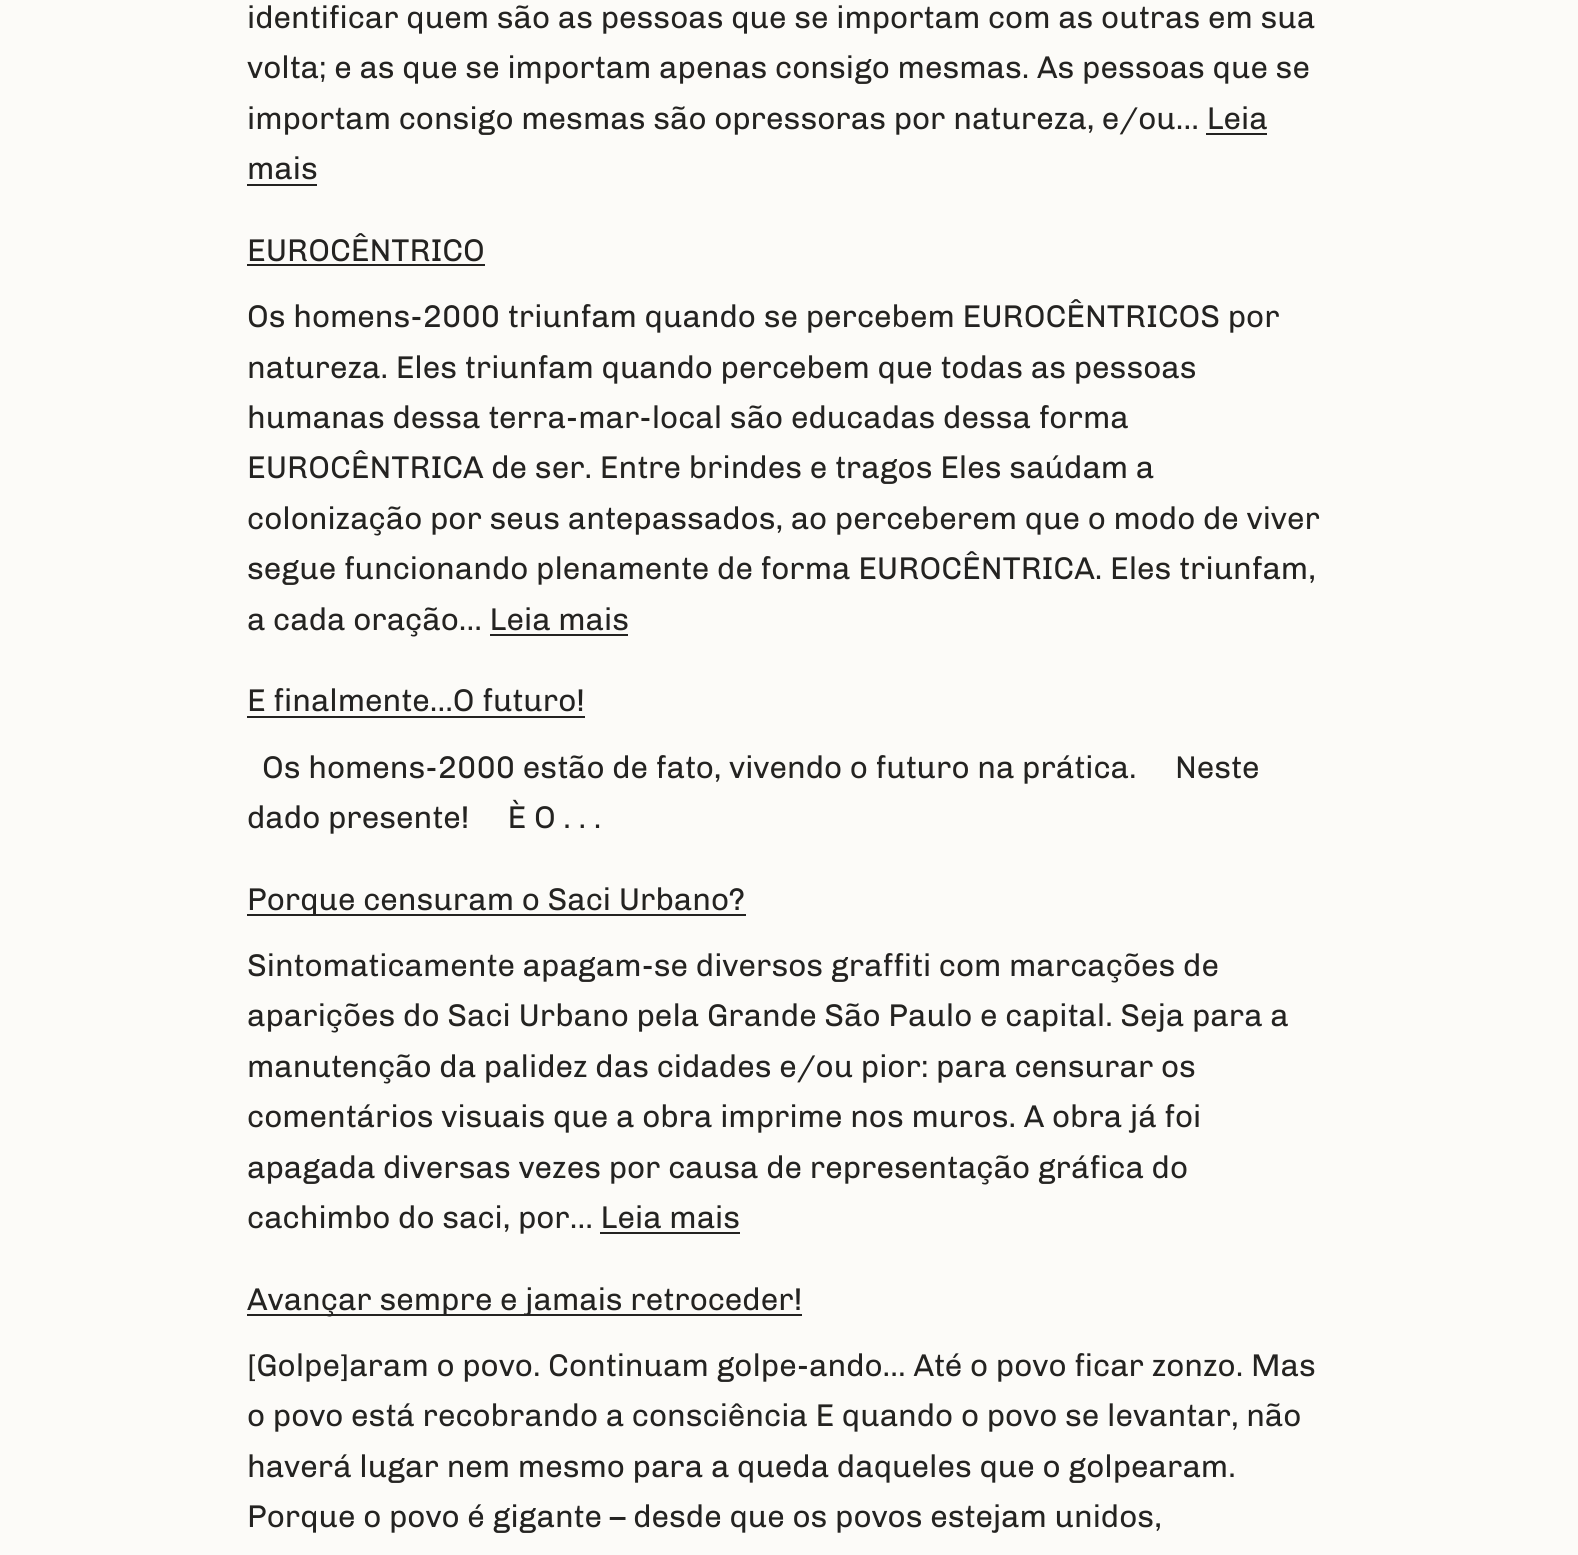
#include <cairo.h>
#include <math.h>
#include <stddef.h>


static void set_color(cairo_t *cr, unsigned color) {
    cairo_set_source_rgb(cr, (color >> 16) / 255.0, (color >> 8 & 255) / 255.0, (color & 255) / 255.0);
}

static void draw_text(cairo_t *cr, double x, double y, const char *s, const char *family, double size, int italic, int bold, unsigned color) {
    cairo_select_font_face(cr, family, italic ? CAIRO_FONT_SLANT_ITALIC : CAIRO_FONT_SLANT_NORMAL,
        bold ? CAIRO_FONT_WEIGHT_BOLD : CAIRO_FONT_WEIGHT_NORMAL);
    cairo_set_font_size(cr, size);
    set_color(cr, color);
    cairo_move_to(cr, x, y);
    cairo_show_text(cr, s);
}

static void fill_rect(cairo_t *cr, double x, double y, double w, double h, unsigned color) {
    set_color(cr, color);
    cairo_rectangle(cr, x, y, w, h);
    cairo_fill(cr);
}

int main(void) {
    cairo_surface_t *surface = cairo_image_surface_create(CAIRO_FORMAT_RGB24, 1578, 1555);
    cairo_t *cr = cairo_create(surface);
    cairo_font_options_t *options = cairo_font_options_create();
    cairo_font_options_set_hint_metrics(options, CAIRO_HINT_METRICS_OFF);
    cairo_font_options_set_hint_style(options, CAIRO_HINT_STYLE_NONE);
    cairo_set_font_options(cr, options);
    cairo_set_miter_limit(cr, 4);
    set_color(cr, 0xFCFBF8);
    cairo_paint(cr);
    draw_text(cr, 247, 28, "identificar quem são as pessoas que se importam com as outras em sua", "Chivo", 31.5, 0, 0, 0x242321);
    draw_text(cr, 247, 78, "volta; e as que se importam apenas consigo mesmas. As pessoas que se", "Chivo", 31.5, 0, 0, 0x242321);
    draw_text(cr, 247, 129, "importam consigo mesmas são opressoras por natureza, e/ou… Leia", "Chivo", 31.5, 0, 0, 0x242321);
    draw_text(cr, 247, 179, "mais", "Chivo", 31.5, 0, 0, 0x242321);
    fill_rect(cr, 1206, 133, 61, 2, 0x242321);
    fill_rect(cr, 247, 184, 70, 2, 0x242321);
    draw_text(cr, 247, 261, "EUROCÊNTRICO", "Chivo", 31.5, 0, 0, 0x242321);
    fill_rect(cr, 247, 264, 238, 2, 0x242321);
    draw_text(cr, 247, 327, "Os homens-2000 triunfam quando se percebem EUROCÊNTRICOS por", "Chivo", 31.5, 0, 0, 0x242321);
    draw_text(cr, 247, 378, "natureza. Eles triunfam quando percebem que todas as pessoas", "Chivo", 31.5, 0, 0, 0x242321);
    draw_text(cr, 247, 428, "humanas dessa terra-mar-local são educadas dessa forma", "Chivo", 31.5, 0, 0, 0x242321);
    draw_text(cr, 247, 478, "EUROCÊNTRICA de ser. Entre brindes e tragos Eles saúdam a", "Chivo", 31.5, 0, 0, 0x242321);
    draw_text(cr, 247, 529, "colonização por seus antepassados, ao perceberem que o modo de viver", "Chivo", 31.5, 0, 0, 0x242321);
    draw_text(cr, 247, 579, "segue funcionando plenamente de forma EUROCÊNTRICA. Eles triunfam,", "Chivo", 31.5, 0, 0, 0x242321);
    draw_text(cr, 247, 630, "a cada oração… Leia mais", "Chivo", 31.5, 0, 0, 0x242321);
    fill_rect(cr, 490, 634, 138, 2, 0x242321);
    draw_text(cr, 247, 711, "E finalmente…O futuro!", "Chivo", 31.5, 0, 0, 0x242321);
    fill_rect(cr, 247, 716, 338, 2, 0x242321);
    draw_text(cr, 262, 778, "Os homens-2000 estão de fato, vivendo o futuro na prática.     Neste", "Chivo", 31.5, 0, 0, 0x242321);
    draw_text(cr, 247, 828, "dado presente!     È O . . .", "Chivo", 31.5, 0, 0, 0x242321);
    fill_rect(cr, 247, 914, 499, 2, 0x242321);
    draw_text(cr, 247, 910, "Porque censuram o Saci Urbano?", "Chivo", 31.5, 0, 0, 0x242321);
    draw_text(cr, 247, 976, "Sintomaticamente apagam-se diversos graffiti com marcações de", "Chivo", 31.5, 0, 0, 0x242321);
    draw_text(cr, 247, 1026, "aparições do Saci Urbano pela Grande São Paulo e capital. Seja para a", "Chivo", 31.5, 0, 0, 0x242321);
    draw_text(cr, 247, 1077, "manutenção da palidez das cidades e/ou pior: para censurar os", "Chivo", 31.5, 0, 0, 0x242321);
    draw_text(cr, 247, 1127, "comentários visuais que a obra imprime nos muros. A obra já foi", "Chivo", 31.5, 0, 0, 0x242321);
    draw_text(cr, 247, 1178, "apagada diversas vezes por causa de representação gráfica do", "Chivo", 31.5, 0, 0, 0x242321);
    draw_text(cr, 247, 1228, "cachimbo do saci, por… Leia mais", "Chivo", 31.5, 0, 0, 0x242321);
    fill_rect(cr, 600, 1232, 140, 2, 0x242321);
    fill_rect(cr, 247, 1314, 555, 2, 0x242321);
    draw_text(cr, 247, 1310, "Avançar sempre e jamais retroceder!", "Chivo", 31.5, 0, 0, 0x242321);
    draw_text(cr, 247, 1376, "[Golpe]aram o povo. Continuam golpe-ando… Até o povo ficar zonzo. Mas", "Chivo", 31.5, 0, 0, 0x242321);
    draw_text(cr, 247, 1426, "o povo está recobrando a consciência E quando o povo se levantar, não", "Chivo", 31.5, 0, 0, 0x242321);
    draw_text(cr, 247, 1477, "haverá lugar nem mesmo para a queda daqueles que o golpearam.", "Chivo", 31.5, 0, 0, 0x242321);
    draw_text(cr, 247, 1527, "Porque o povo é gigante – desde que os povos estejam unidos,", "Chivo", 31.5, 0, 0, 0x242321);
    cairo_surface_write_to_png(surface, "output.png");
    cairo_font_options_destroy(options);
    cairo_destroy(cr);
    cairo_surface_destroy(surface);
    return 0;
}
